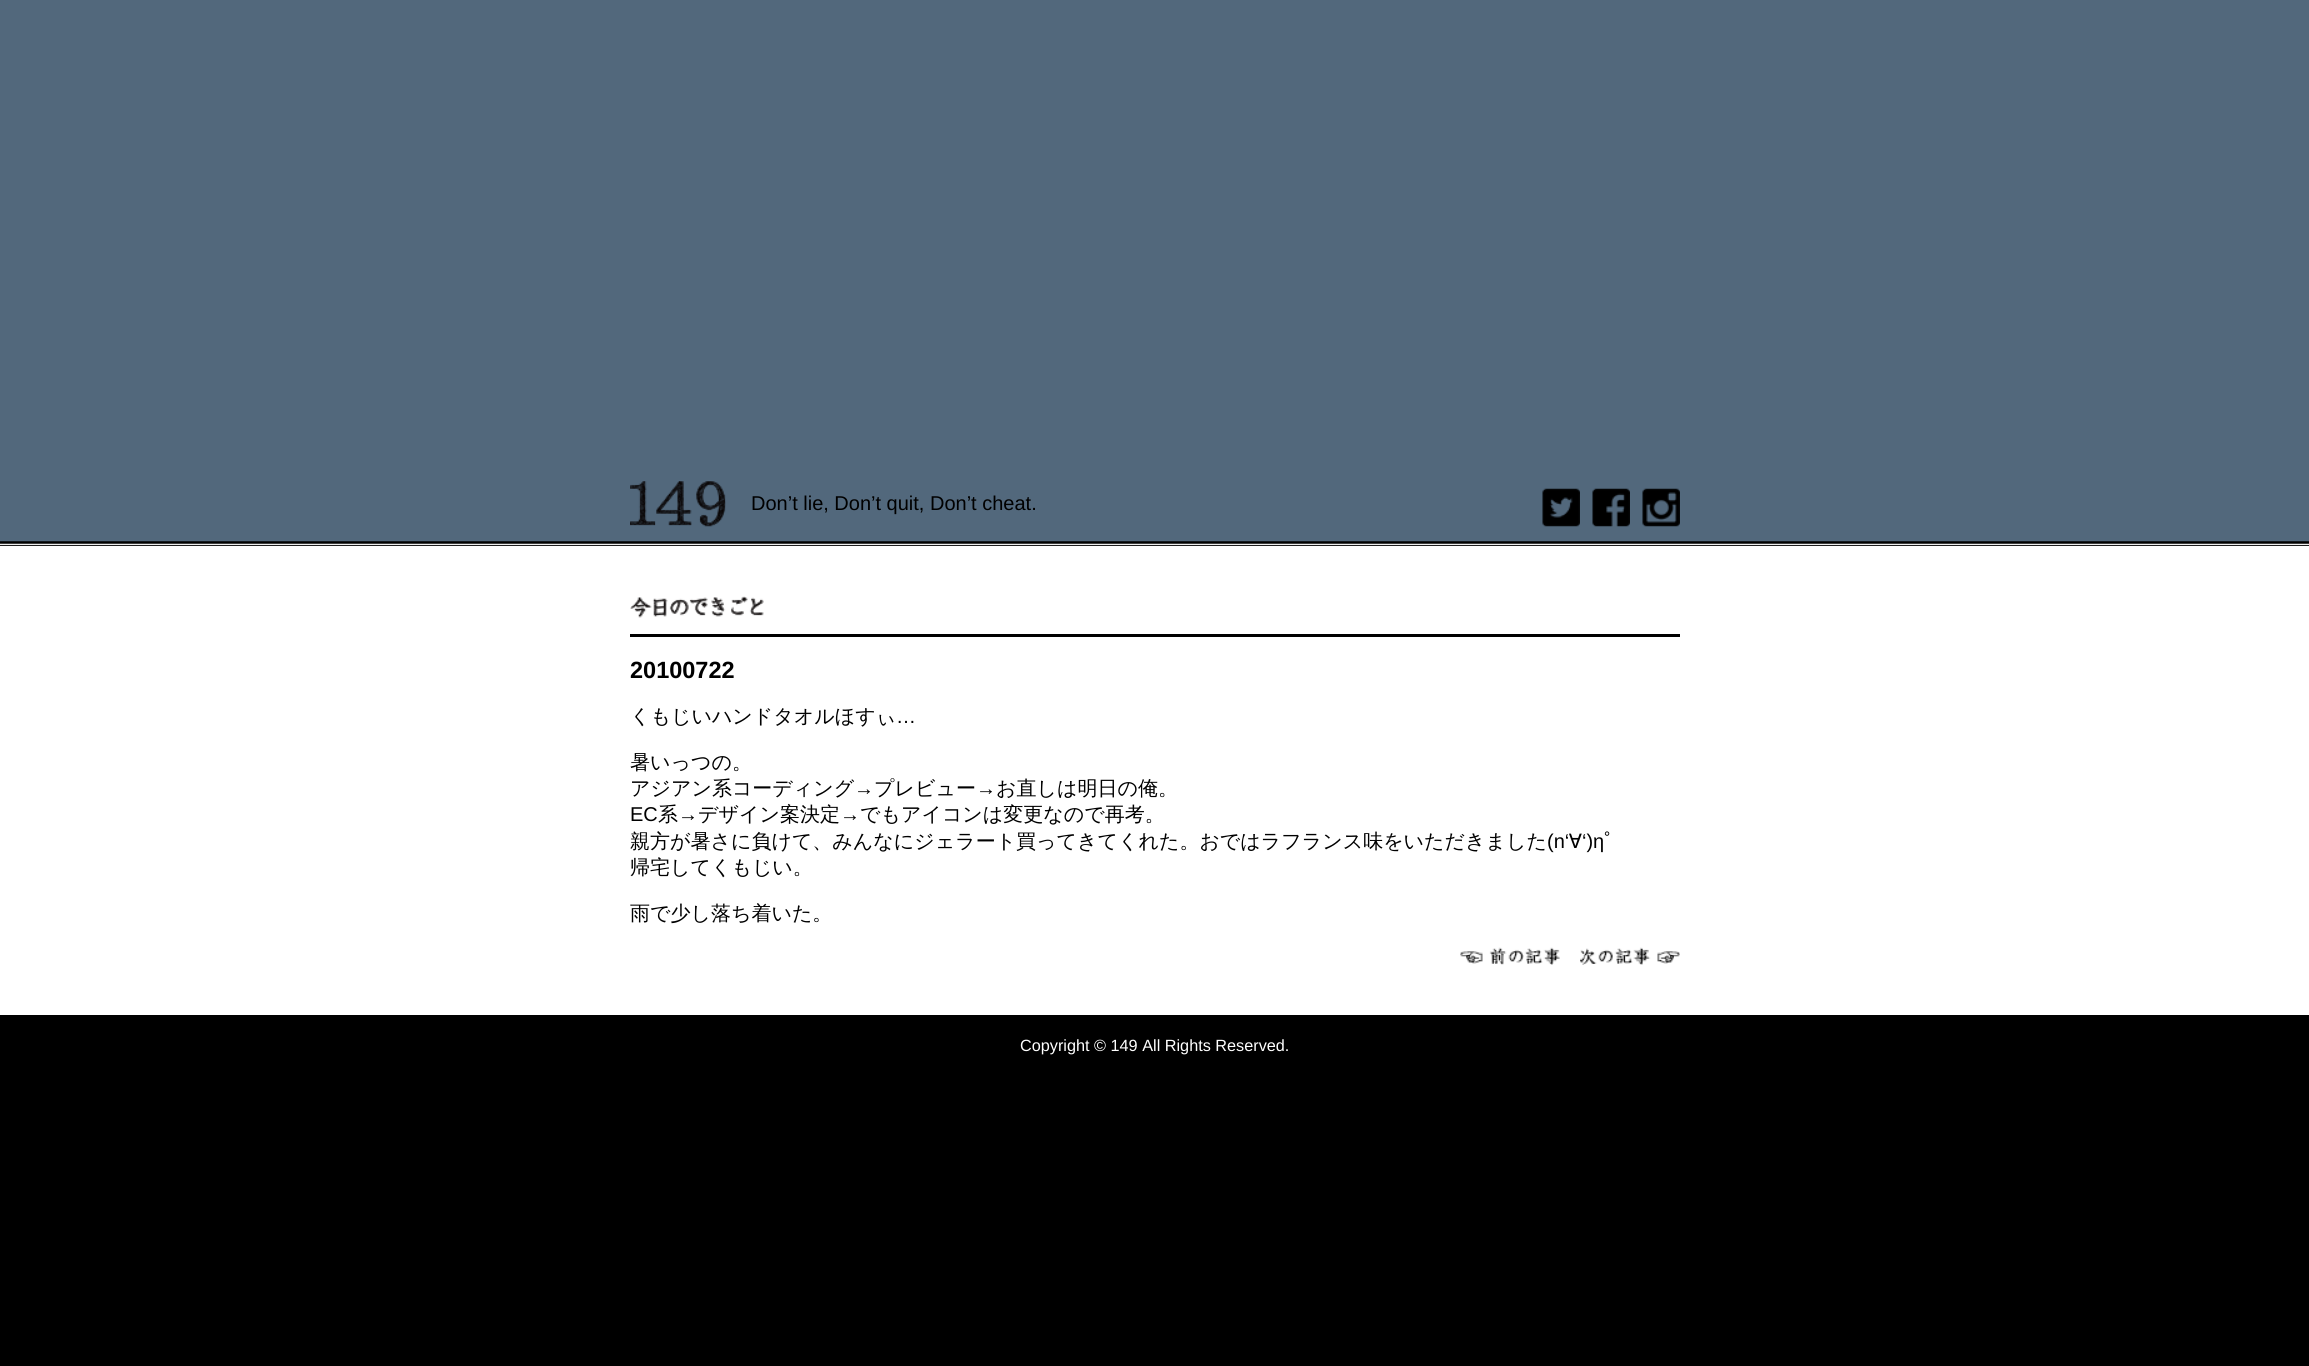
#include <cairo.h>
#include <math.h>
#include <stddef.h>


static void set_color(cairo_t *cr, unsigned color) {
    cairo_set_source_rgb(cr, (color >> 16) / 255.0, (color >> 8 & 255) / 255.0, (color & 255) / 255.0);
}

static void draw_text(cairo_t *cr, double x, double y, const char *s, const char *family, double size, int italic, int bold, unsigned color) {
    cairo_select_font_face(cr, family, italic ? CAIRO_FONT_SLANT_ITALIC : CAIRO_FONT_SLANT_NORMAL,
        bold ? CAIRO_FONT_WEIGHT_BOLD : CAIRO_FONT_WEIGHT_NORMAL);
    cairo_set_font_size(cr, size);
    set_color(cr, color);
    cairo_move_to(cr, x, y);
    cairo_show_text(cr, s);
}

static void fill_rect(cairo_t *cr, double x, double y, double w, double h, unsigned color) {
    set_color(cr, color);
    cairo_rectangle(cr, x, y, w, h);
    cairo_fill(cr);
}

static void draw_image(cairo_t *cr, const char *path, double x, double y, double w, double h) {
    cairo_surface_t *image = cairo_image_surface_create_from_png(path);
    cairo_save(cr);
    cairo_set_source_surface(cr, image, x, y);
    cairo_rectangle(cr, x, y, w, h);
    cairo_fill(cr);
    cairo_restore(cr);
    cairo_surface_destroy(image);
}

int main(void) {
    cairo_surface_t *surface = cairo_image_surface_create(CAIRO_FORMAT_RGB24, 2309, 1366);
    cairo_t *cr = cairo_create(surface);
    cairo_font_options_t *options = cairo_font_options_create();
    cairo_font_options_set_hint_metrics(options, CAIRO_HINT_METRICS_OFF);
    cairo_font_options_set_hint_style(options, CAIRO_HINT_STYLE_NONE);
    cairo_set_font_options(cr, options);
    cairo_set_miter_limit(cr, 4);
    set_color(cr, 0x000000);
    cairo_paint(cr);
    fill_rect(cr, 0, 0, 2309, 542, 0x52687C);
    draw_image(cr, "assets/img1.png", 0, 541, 2309, 5);
    draw_image(cr, "assets/img2.png", 630, 481, 96, 46);
    draw_text(cr, 751, 510, "Don’t lie, Don’t quit, Don’t cheat.", "Liberation Sans", 20, 0, 0, 0x000000);
    draw_image(cr, "assets/img3.png", 1542, 488, 38, 39);
    draw_image(cr, "assets/img4.png", 1592, 488, 38, 39);
    draw_image(cr, "assets/img5.png", 1642, 488, 38, 39);
    fill_rect(cr, 0, 546, 2309, 469, 0xFFFFFF);
    draw_image(cr, "assets/img6.png", 630, 596, 134, 22);
    fill_rect(cr, 630, 634, 1050, 3, 0x000000);
    draw_text(cr, 630, 678, "20100722", "Liberation Sans", 23.5, 0, 1, 0x000000);
    draw_text(cr, 630, 723, "くもじいハンドタオルほすぃ", "WenQuanYi Zen Hei Medium", 20, 0, 0, 0x000000);
    draw_text(cr, 896, 723, "…", "Liberation Sans", 20, 0, 0, 0x000000);
    draw_text(cr, 630, 769, "暑いっつの。", "WenQuanYi Zen Hei Medium", 20, 0, 0, 0x000000);
    draw_text(cr, 630, 795, "アジアン系コーディング", "WenQuanYi Zen Hei Medium", 20, 0, 0, 0x000000);
    draw_text(cr, 854, 795, "→", "Liberation Sans", 20, 0, 0, 0x000000);
    draw_text(cr, 874, 795, "プレビュー", "WenQuanYi Zen Hei Medium", 20, 0, 0, 0x000000);
    draw_text(cr, 976, 795, "→", "Liberation Sans", 20, 0, 0, 0x000000);
    draw_text(cr, 996, 795, "お直しは明日の俺。", "WenQuanYi Zen Hei Medium", 20, 0, 0, 0x000000);
    draw_text(cr, 630, 821, "EC", "Liberation Sans", 20, 0, 0, 0x000000);
    draw_text(cr, 658, 821, "系", "WenQuanYi Zen Hei Medium", 20, 0, 0, 0x000000);
    draw_text(cr, 678, 821, "→", "Liberation Sans", 20, 0, 0, 0x000000);
    draw_text(cr, 698, 821, "デザイン案決定", "WenQuanYi Zen Hei Medium", 20, 0, 0, 0x000000);
    draw_text(cr, 840, 821, "→", "Liberation Sans", 20, 0, 0, 0x000000);
    draw_text(cr, 860, 821, "でもアイコンは変更なので再考。", "WenQuanYi Zen Hei Medium", 20, 0, 0, 0x000000);
    draw_text(cr, 630, 848, "親方が暑さに負けて、みんなにジェラート買ってきてくれた。おではラフランス味をいただきました", "WenQuanYi Zen Hei Medium", 20, 0, 0, 0x000000);
    draw_text(cr, 1547, 848, "(n‘", "Liberation Sans", 20, 0, 0, 0x000000);
    draw_text(cr, 1569, 848, "∀", "WenQuanYi Zen Hei Medium", 20, 0, 0, 0x000000);
    draw_text(cr, 1582, 848, "‘)η", "Liberation Sans", 20, 0, 0, 0x000000);
    draw_text(cr, 1604, 848, "ﾟ", "IPAPGothic", 20, 0, 0, 0x000000);
    draw_text(cr, 630, 874, "帰宅してくもじい。", "WenQuanYi Zen Hei Medium", 20, 0, 0, 0x000000);
    draw_text(cr, 630, 920, "雨で少し落ち着いた。", "WenQuanYi Zen Hei Medium", 20, 0, 0, 0x000000);
    draw_image(cr, "assets/img7.png", 1460, 947, 100, 18);
    draw_image(cr, "assets/img8.png", 1580, 947, 100, 18);
    draw_text(cr, 1020, 1051, "Copyright © 149 All Rights Reserved.", "Liberation Sans", 16.25, 0, 0, 0xFFFFFF);
    cairo_surface_write_to_png(surface, "output.png");
    cairo_font_options_destroy(options);
    cairo_destroy(cr);
    cairo_surface_destroy(surface);
    return 0;
}
